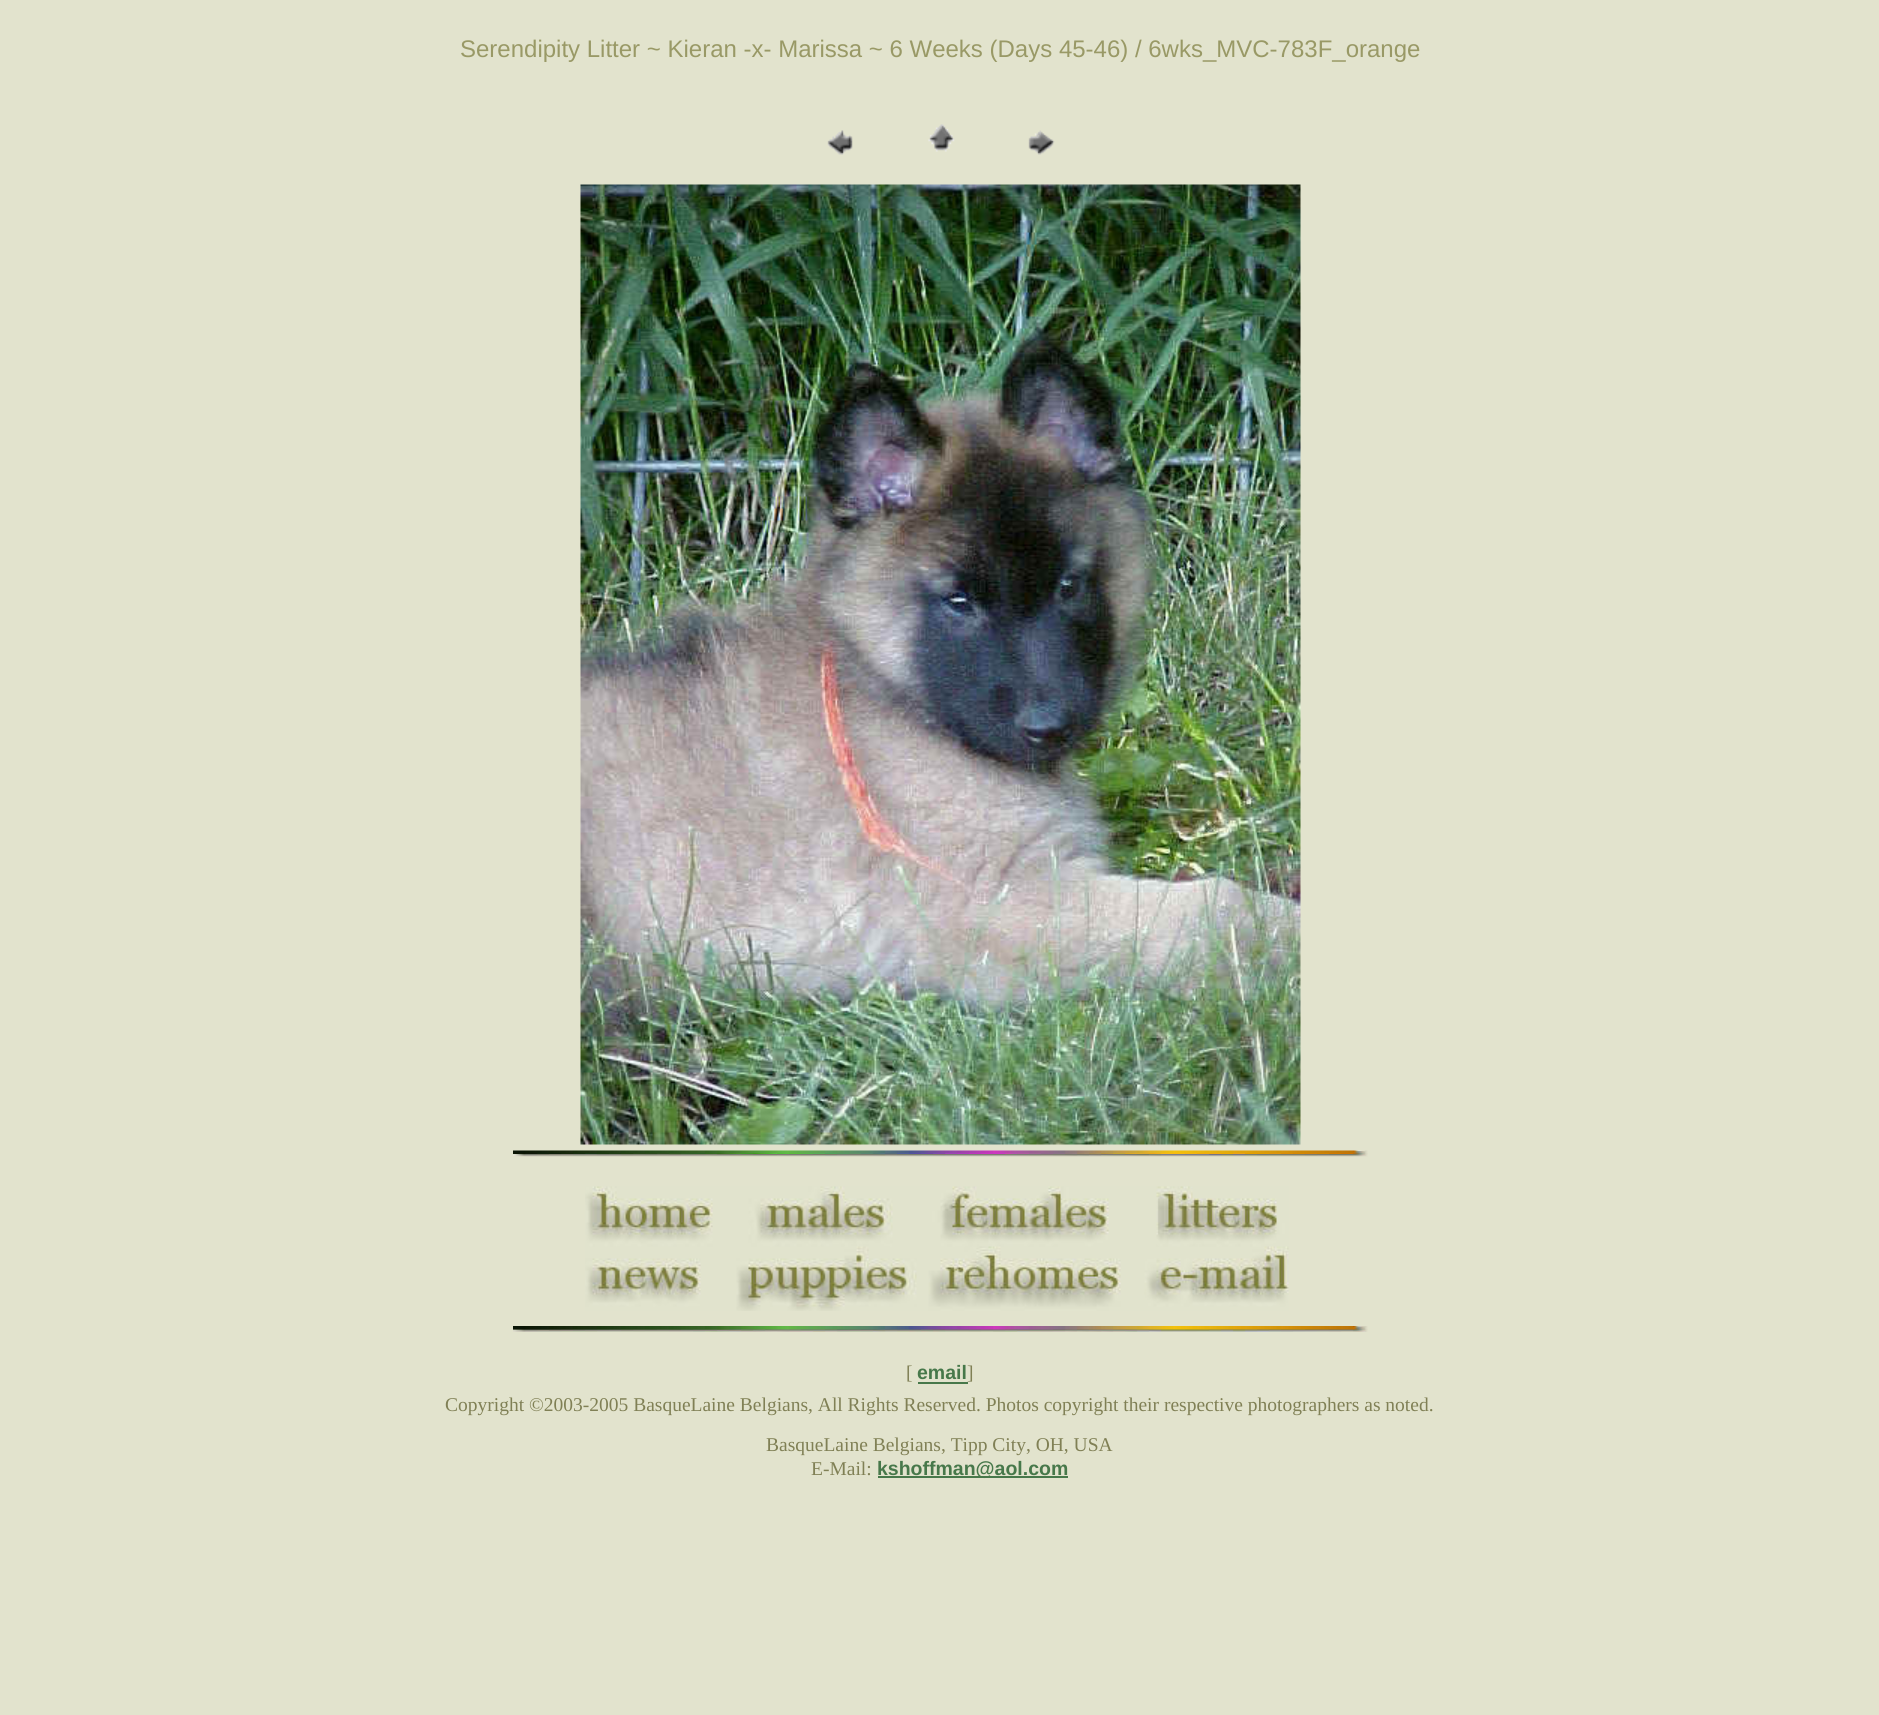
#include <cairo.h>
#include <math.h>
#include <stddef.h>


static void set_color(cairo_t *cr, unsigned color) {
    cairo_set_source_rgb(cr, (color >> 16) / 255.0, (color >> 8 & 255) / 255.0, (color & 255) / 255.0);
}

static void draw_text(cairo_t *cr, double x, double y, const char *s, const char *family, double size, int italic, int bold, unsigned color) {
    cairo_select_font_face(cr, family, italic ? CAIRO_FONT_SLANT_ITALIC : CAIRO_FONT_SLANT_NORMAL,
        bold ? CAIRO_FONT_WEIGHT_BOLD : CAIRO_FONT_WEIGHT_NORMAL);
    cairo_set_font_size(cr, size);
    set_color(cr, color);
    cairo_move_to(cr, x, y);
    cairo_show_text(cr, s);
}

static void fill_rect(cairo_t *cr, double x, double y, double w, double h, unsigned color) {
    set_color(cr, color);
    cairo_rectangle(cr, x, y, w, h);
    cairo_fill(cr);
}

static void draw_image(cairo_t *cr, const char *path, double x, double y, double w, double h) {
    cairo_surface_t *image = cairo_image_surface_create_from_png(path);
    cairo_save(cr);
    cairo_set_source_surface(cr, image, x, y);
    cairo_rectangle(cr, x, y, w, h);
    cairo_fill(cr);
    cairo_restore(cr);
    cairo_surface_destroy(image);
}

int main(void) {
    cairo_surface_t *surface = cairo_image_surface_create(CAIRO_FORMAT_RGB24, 1879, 1715);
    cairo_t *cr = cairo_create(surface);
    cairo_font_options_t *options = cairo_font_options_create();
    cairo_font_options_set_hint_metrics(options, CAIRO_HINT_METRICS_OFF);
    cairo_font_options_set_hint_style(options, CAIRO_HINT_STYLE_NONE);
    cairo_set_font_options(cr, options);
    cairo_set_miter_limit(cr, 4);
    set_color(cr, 0xE2E3CD);
    cairo_paint(cr);
    draw_text(cr, 460, 57, "Serendipity Litter ~ Kieran -x- Marissa ~ 6 Weeks (Days 45-46) / 6wks_MVC-783F_orange", "Liberation Sans", 24, 0, 0, 0x999966);
    draw_image(cr, "assets/img1.png", 827, 130, 26, 25);
    draw_image(cr, "assets/img2.png", 928, 124, 27, 28);
    draw_image(cr, "assets/img3.png", 1028, 130, 27, 25);
    draw_image(cr, "assets/img4.png", 580, 184, 721, 961);
    draw_image(cr, "assets/img5.png", 513, 1150, 855, 7);
    draw_image(cr, "assets/img6.png", 585, 1186, 704, 125);
    draw_image(cr, "assets/img7.png", 513, 1326, 855, 6);
    draw_text(cr, 906, 1379, "[", "Liberation Serif", 19.5, 0, 0, 0x808055);
    draw_text(cr, 917, 1379, "email", "Liberation Sans", 19.5, 0, 1, 0x47784A);
    draw_text(cr, 967, 1379, "]", "Liberation Serif", 19.5, 0, 0, 0x808055);
    fill_rect(cr, 918, 1382, 50, 2, 0x47784A);
    draw_text(cr, 445, 1411, "Copyright ©2003-2005 BasqueLaine Belgians, All Rights Reserved. Photos copyright their respective photographers as noted.", "Liberation Serif", 19.5, 0, 0, 0x808055);
    draw_text(cr, 766, 1451, "BasqueLaine Belgians, Tipp City, OH, USA", "Liberation Serif", 19.5, 0, 0, 0x808055);
    draw_text(cr, 811, 1475, "E-Mail:", "Liberation Serif", 19.5, 0, 0, 0x808055);
    fill_rect(cr, 878, 1476, 190, 2, 0x47784A);
    draw_text(cr, 877, 1475, "kshoffman@aol.com", "Liberation Sans", 19.5, 0, 1, 0x47784A);
    cairo_surface_write_to_png(surface, "output.png");
    cairo_font_options_destroy(options);
    cairo_destroy(cr);
    cairo_surface_destroy(surface);
    return 0;
}
